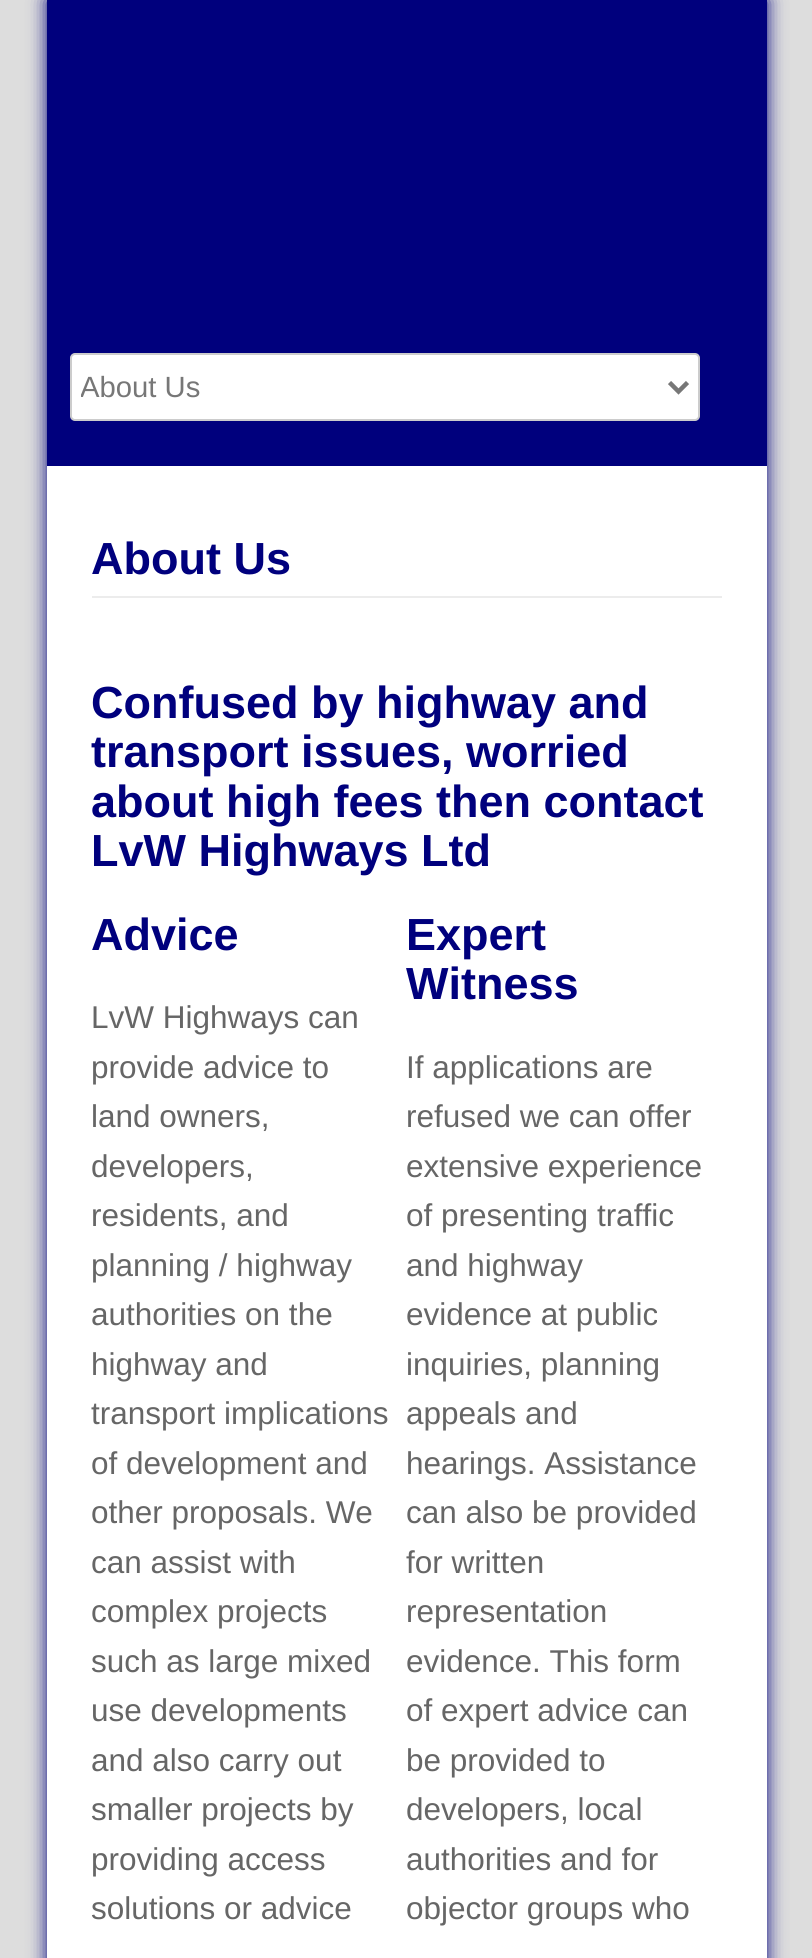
#include <cairo.h>
#include <math.h>
#include <stddef.h>


static void set_color(cairo_t *cr, unsigned color) {
    cairo_set_source_rgb(cr, (color >> 16) / 255.0, (color >> 8 & 255) / 255.0, (color & 255) / 255.0);
}

static void draw_text(cairo_t *cr, double x, double y, const char *s, const char *family, double size, int italic, int bold, unsigned color) {
    cairo_select_font_face(cr, family, italic ? CAIRO_FONT_SLANT_ITALIC : CAIRO_FONT_SLANT_NORMAL,
        bold ? CAIRO_FONT_WEIGHT_BOLD : CAIRO_FONT_WEIGHT_NORMAL);
    cairo_set_font_size(cr, size);
    set_color(cr, color);
    cairo_move_to(cr, x, y);
    cairo_show_text(cr, s);
}

static void fill_rect(cairo_t *cr, double x, double y, double w, double h, unsigned color) {
    set_color(cr, color);
    cairo_rectangle(cr, x, y, w, h);
    cairo_fill(cr);
}

static void rounded_rect(cairo_t *cr, double x, double y, double w, double h, double r) {
    cairo_new_sub_path(cr);
    cairo_arc(cr, x + w - r, y + h - r, r, 0, M_PI / 2);
    cairo_arc(cr, x + r, y + h - r, r, M_PI / 2, M_PI);
    cairo_arc(cr, x + r, y + r, r, M_PI, 1.5 * M_PI);
    cairo_arc(cr, x + w - r, y + r, r, 1.5 * M_PI, 2 * M_PI);
    cairo_close_path(cr);
}

static void draw_shadow(cairo_t *cr, double x, double y, double w, double h, double r, double blur, double alpha) {
    cairo_push_group_with_content(cr, CAIRO_CONTENT_ALPHA);
    cairo_set_operator(cr, CAIRO_OPERATOR_SOURCE);
    for (int i = 15; i >= -15 && fmin(w, h) + blur * i / 3 > 0; i -= 2) {
        double e = blur * i / 6;
        cairo_set_source_rgba(cr, 0, 0, 0, alpha * erfc((i - 1) / 8.5) / 2);
        rounded_rect(cr, x - e, y - e, w + 2 * e, h + 2 * e, fmax(0, fmin(r + e + blur * .6, fmin(w, h) / 2 + e)));
        cairo_fill(cr);
    }
    cairo_pattern_t *soft = cairo_pop_group(cr);
    cairo_mask(cr, soft);
    cairo_pattern_destroy(soft);
}

int main(void) {
    cairo_surface_t *surface = cairo_image_surface_create(CAIRO_FORMAT_RGB24, 812, 1958);
    cairo_t *cr = cairo_create(surface);
    cairo_font_options_t *options = cairo_font_options_create();
    cairo_font_options_set_hint_metrics(options, CAIRO_HINT_METRICS_OFF);
    cairo_font_options_set_hint_style(options, CAIRO_HINT_STYLE_NONE);
    cairo_set_font_options(cr, options);
    cairo_set_miter_limit(cr, 4);
    set_color(cr, 0xDDDDDD);
    cairo_paint(cr);
    set_color(cr, 0x00007D);
    draw_shadow(cr, 47, 0, 720, 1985, 0, 9, 1);
    fill_rect(cr, 47, 466, 720, 1492, 0xFFFFFF);
    fill_rect(cr, 47, 0, 720, 466, 0x00007D);
    set_color(cr, 0xFFFFFF);
    rounded_rect(cr, 71, 354, 628, 66, 4);
    cairo_fill_preserve(cr);
    set_color(cr, 0xCCCCCC);
    cairo_stroke(cr);
    cairo_new_path(cr);
    cairo_move_to(cr, 669.5, 382.5);
    cairo_line_to(cr, 678.5, 391.5);
    cairo_line_to(cr, 687.5, 382.5);
    set_color(cr, 0x777777);
    cairo_set_line_width(cr, 4.5);
    cairo_stroke(cr);
    cairo_save(cr);
    cairo_rectangle(cr, 81, 369, 581, 38);
    cairo_clip(cr);
    draw_text(cr, 80, 397, "About Us", "Liberation Sans", 29.25, 0, 0, 0x777777);
    cairo_restore(cr);
    fill_rect(cr, 92, 596, 630, 2, 0xECECEC);
    draw_text(cr, 91, 574, "About Us", "Liberation Sans", 45, 0, 1, 0x00007D);
    draw_text(cr, 91, 718, "Confused by highway and", "Liberation Sans", 45, 0, 1, 0x00007D);
    draw_text(cr, 91, 767, "transport issues, worried", "Liberation Sans", 45, 0, 1, 0x00007D);
    draw_text(cr, 91, 817, "about high fees then contact", "Liberation Sans", 45, 0, 1, 0x00007D);
    draw_text(cr, 91, 866, "LvW Highways Ltd", "Liberation Sans", 45, 0, 1, 0x00007D);
    draw_text(cr, 91, 950, "Advice", "Liberation Sans", 45, 0, 1, 0x00007D);
    draw_text(cr, 91, 1028, "LvW Highways can", "Liberation Sans", 31.5, 0, 0, 0x666666);
    draw_text(cr, 91, 1078, "provide advice to", "Liberation Sans", 31.5, 0, 0, 0x666666);
    draw_text(cr, 91, 1127, "land owners,", "Liberation Sans", 31.5, 0, 0, 0x666666);
    draw_text(cr, 91, 1177, "developers,", "Liberation Sans", 31.5, 0, 0, 0x666666);
    draw_text(cr, 91, 1226, "residents, and", "Liberation Sans", 31.5, 0, 0, 0x666666);
    draw_text(cr, 91, 1276, "planning / highway", "Liberation Sans", 31.5, 0, 0, 0x666666);
    draw_text(cr, 91, 1325, "authorities on the", "Liberation Sans", 31.5, 0, 0, 0x666666);
    draw_text(cr, 91, 1375, "highway and", "Liberation Sans", 31.5, 0, 0, 0x666666);
    draw_text(cr, 91, 1424, "transport implications", "Liberation Sans", 31.5, 0, 0, 0x666666);
    draw_text(cr, 91, 1474, "of development and", "Liberation Sans", 31.5, 0, 0, 0x666666);
    draw_text(cr, 91, 1523, "other proposals. We", "Liberation Sans", 31.5, 0, 0, 0x666666);
    draw_text(cr, 91, 1573, "can assist with", "Liberation Sans", 31.5, 0, 0, 0x666666);
    draw_text(cr, 91, 1622, "complex projects", "Liberation Sans", 31.5, 0, 0, 0x666666);
    draw_text(cr, 91, 1672, "such as large mixed", "Liberation Sans", 31.5, 0, 0, 0x666666);
    draw_text(cr, 91, 1721, "use developments", "Liberation Sans", 31.5, 0, 0, 0x666666);
    draw_text(cr, 91, 1771, "and also carry out", "Liberation Sans", 31.5, 0, 0, 0x666666);
    draw_text(cr, 91, 1820, "smaller projects by", "Liberation Sans", 31.5, 0, 0, 0x666666);
    draw_text(cr, 91, 1870, "providing access", "Liberation Sans", 31.5, 0, 0, 0x666666);
    draw_text(cr, 91, 1919, "solutions or advice", "Liberation Sans", 31.5, 0, 0, 0x666666);
    draw_text(cr, 406, 950, "Expert", "Liberation Sans", 45, 0, 1, 0x00007D);
    draw_text(cr, 406, 999, "Witness", "Liberation Sans", 45, 0, 1, 0x00007D);
    draw_text(cr, 406, 1078, "If applications are", "Liberation Sans", 31.5, 0, 0, 0x666666);
    draw_text(cr, 406, 1127, "refused we can offer", "Liberation Sans", 31.5, 0, 0, 0x666666);
    draw_text(cr, 406, 1177, "extensive experience", "Liberation Sans", 31.5, 0, 0, 0x666666);
    draw_text(cr, 406, 1226, "of presenting traffic", "Liberation Sans", 31.5, 0, 0, 0x666666);
    draw_text(cr, 406, 1276, "and highway", "Liberation Sans", 31.5, 0, 0, 0x666666);
    draw_text(cr, 406, 1325, "evidence at public", "Liberation Sans", 31.5, 0, 0, 0x666666);
    draw_text(cr, 406, 1375, "inquiries, planning", "Liberation Sans", 31.5, 0, 0, 0x666666);
    draw_text(cr, 406, 1424, "appeals and", "Liberation Sans", 31.5, 0, 0, 0x666666);
    draw_text(cr, 406, 1474, "hearings. Assistance", "Liberation Sans", 31.5, 0, 0, 0x666666);
    draw_text(cr, 406, 1523, "can also be provided", "Liberation Sans", 31.5, 0, 0, 0x666666);
    draw_text(cr, 406, 1573, "for written", "Liberation Sans", 31.5, 0, 0, 0x666666);
    draw_text(cr, 406, 1622, "representation", "Liberation Sans", 31.5, 0, 0, 0x666666);
    draw_text(cr, 406, 1672, "evidence. This form", "Liberation Sans", 31.5, 0, 0, 0x666666);
    draw_text(cr, 406, 1721, "of expert advice can", "Liberation Sans", 31.5, 0, 0, 0x666666);
    draw_text(cr, 406, 1771, "be provided to", "Liberation Sans", 31.5, 0, 0, 0x666666);
    draw_text(cr, 406, 1820, "developers, local", "Liberation Sans", 31.5, 0, 0, 0x666666);
    draw_text(cr, 406, 1870, "authorities and for", "Liberation Sans", 31.5, 0, 0, 0x666666);
    draw_text(cr, 406, 1919, "objector groups who", "Liberation Sans", 31.5, 0, 0, 0x666666);
    cairo_surface_write_to_png(surface, "output.png");
    cairo_font_options_destroy(options);
    cairo_destroy(cr);
    cairo_surface_destroy(surface);
    return 0;
}
